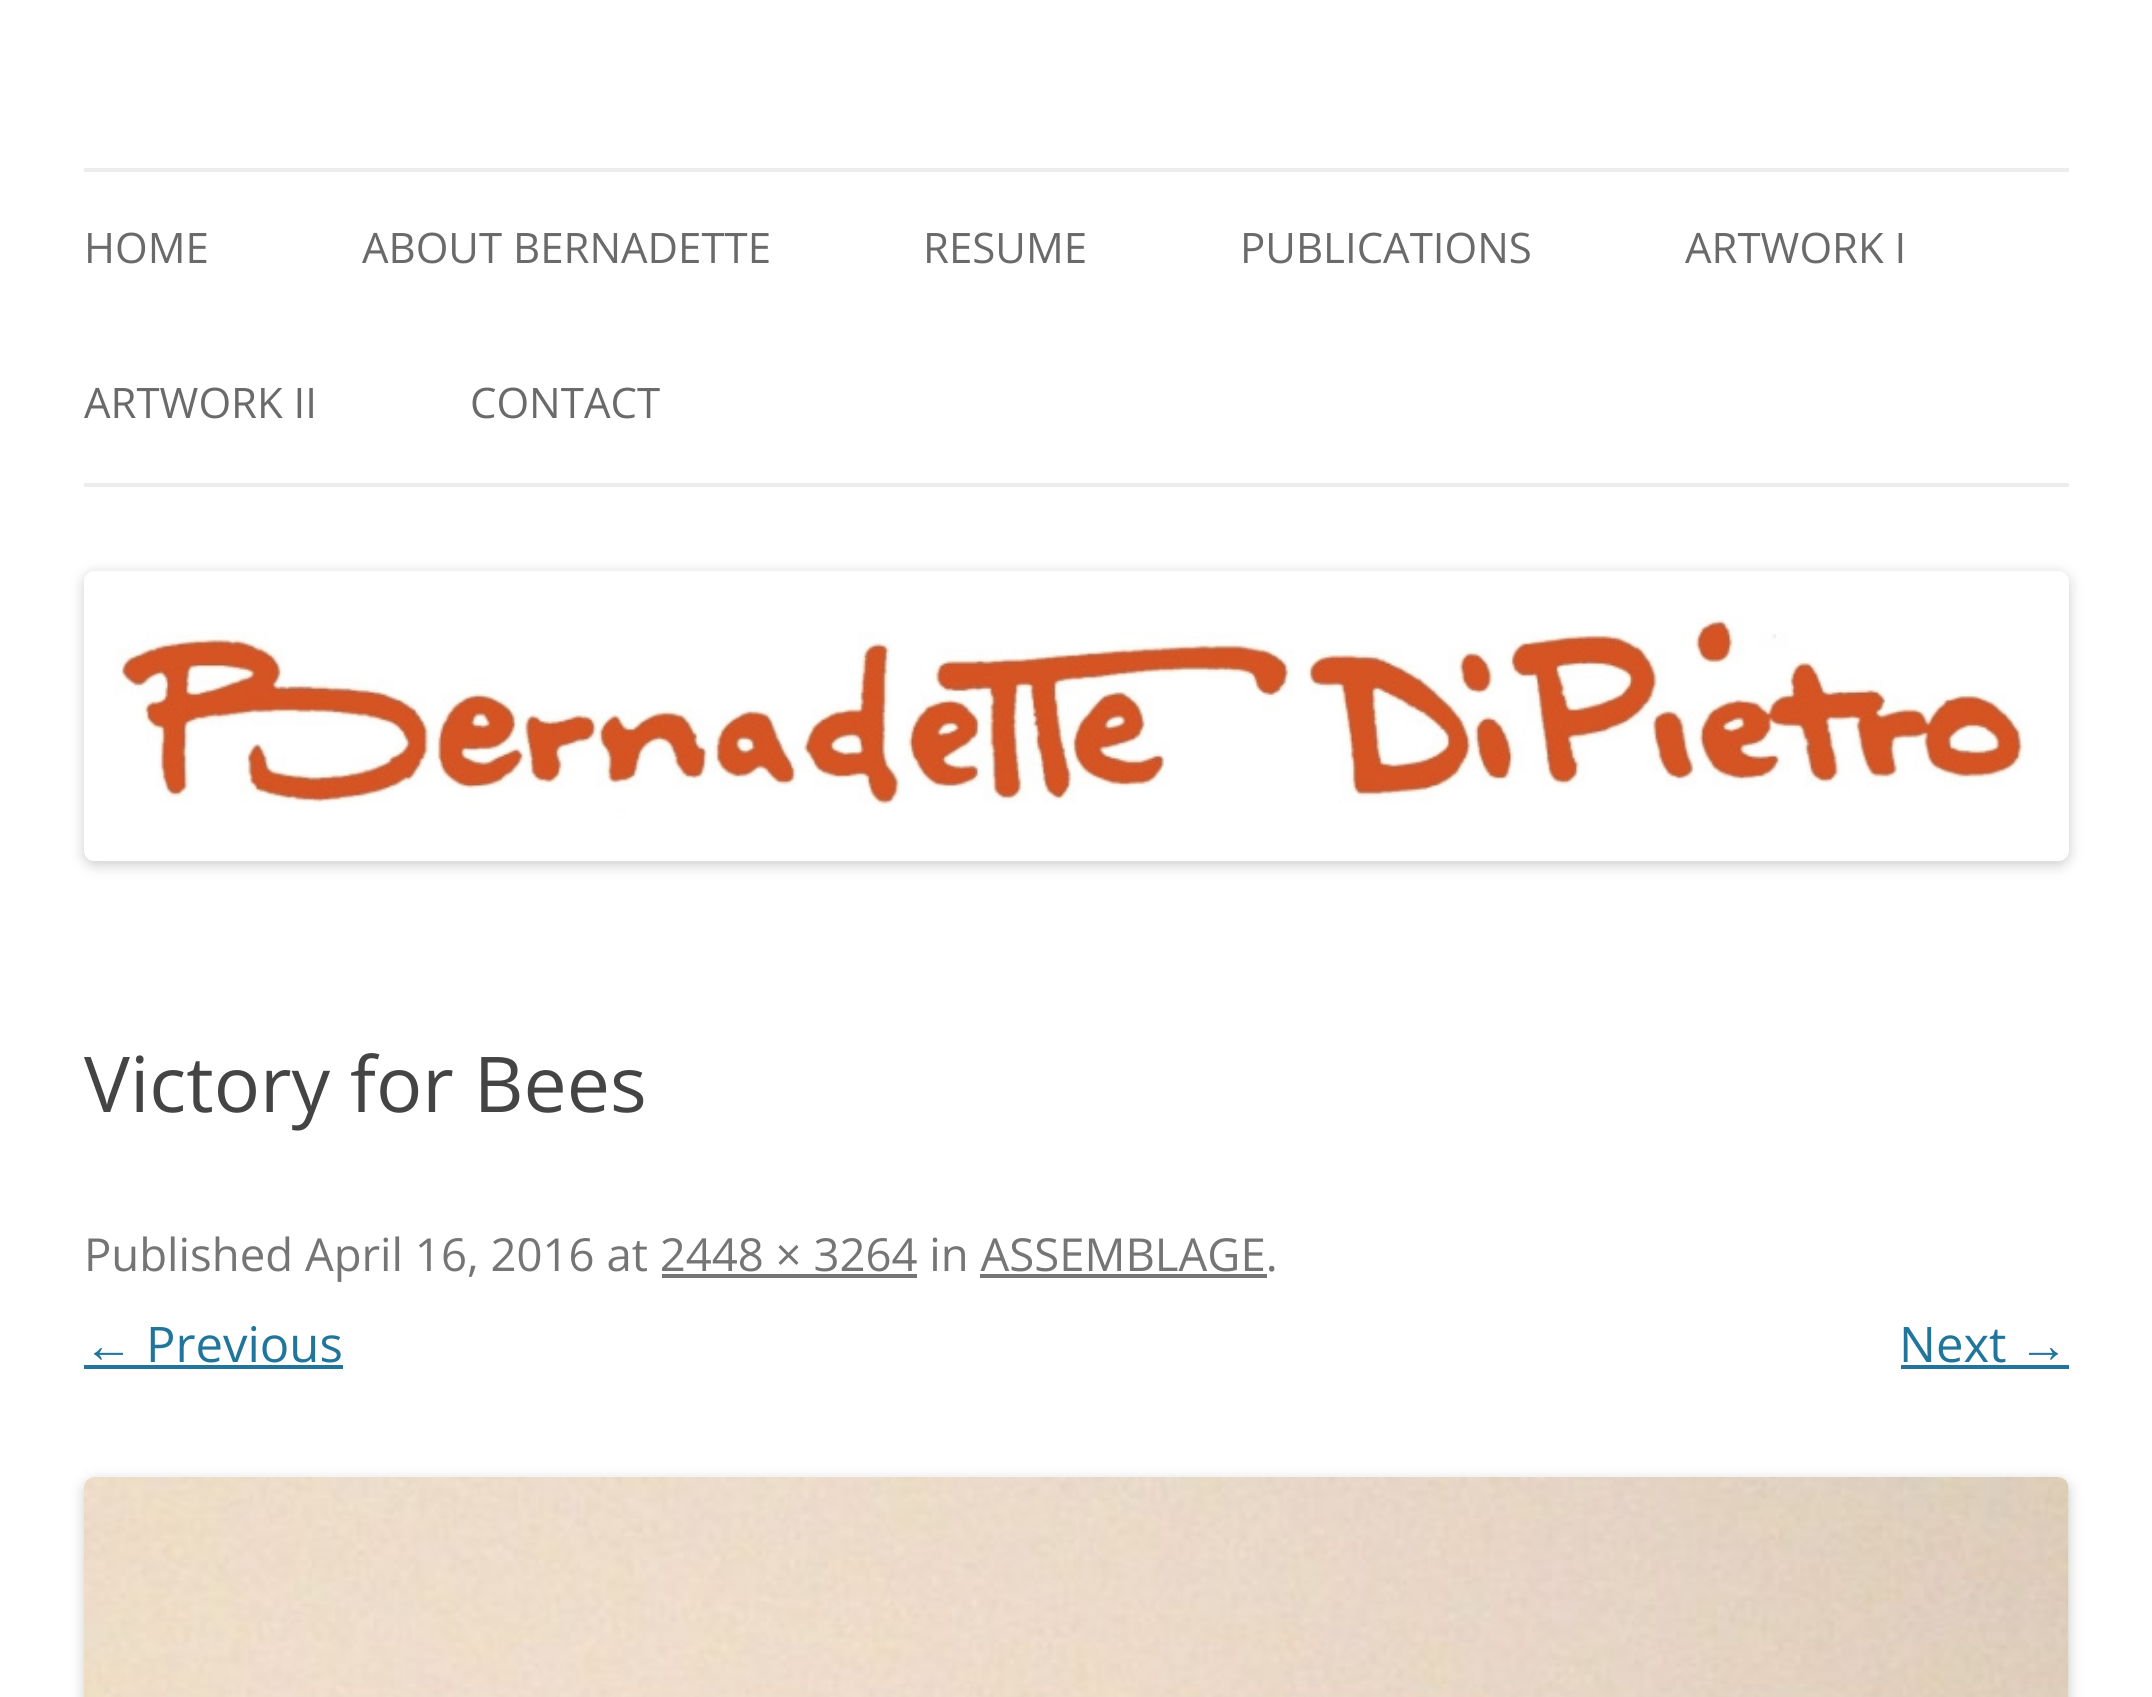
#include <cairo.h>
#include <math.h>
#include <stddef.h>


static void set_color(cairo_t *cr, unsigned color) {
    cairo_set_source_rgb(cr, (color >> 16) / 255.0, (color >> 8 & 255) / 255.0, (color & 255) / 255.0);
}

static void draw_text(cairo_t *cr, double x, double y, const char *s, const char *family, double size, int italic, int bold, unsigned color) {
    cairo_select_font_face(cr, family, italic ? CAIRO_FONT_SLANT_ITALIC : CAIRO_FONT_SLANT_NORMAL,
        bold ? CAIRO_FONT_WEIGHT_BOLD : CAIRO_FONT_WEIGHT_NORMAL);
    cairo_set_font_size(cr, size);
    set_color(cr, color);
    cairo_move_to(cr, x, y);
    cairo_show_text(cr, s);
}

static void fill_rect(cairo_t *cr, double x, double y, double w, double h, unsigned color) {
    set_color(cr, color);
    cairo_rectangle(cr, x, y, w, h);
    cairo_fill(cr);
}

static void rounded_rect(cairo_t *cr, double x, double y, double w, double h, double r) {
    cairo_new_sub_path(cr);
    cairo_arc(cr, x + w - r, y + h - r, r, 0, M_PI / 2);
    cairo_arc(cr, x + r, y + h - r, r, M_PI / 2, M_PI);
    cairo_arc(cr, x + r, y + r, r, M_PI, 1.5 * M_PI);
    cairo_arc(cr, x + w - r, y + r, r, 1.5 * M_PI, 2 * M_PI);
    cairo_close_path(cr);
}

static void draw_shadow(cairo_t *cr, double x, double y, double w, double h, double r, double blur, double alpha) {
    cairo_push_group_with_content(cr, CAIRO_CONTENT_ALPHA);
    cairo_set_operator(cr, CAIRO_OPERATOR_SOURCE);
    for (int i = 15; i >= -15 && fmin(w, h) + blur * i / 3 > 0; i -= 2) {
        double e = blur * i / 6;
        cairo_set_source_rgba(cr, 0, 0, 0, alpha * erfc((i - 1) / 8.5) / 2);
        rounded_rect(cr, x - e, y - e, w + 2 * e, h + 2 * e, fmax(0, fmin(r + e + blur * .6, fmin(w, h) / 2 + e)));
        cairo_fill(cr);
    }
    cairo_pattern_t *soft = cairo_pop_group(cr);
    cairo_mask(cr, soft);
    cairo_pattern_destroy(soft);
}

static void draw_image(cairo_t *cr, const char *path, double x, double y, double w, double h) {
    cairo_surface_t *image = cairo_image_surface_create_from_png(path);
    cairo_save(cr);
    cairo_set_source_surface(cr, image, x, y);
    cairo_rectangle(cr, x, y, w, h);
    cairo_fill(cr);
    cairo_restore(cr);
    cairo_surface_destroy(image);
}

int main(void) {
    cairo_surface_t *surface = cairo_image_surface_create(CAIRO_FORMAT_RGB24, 2152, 1697);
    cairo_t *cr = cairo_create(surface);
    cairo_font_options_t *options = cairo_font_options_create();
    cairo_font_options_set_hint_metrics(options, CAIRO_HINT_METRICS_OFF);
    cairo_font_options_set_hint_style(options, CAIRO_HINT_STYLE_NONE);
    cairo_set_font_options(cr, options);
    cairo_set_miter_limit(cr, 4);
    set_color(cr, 0xFFFFFF);
    cairo_paint(cr);
    fill_rect(cr, 84, 168, 1985, 4, 0xEDEDED);
    fill_rect(cr, 84, 483, 1985, 4, 0xEDEDED);
    draw_text(cr, 84, 263, "HOME", "Open Sans", 42, 0, 0, 0x6A6A6A);
    draw_text(cr, 362, 263, "ABOUT BERNADETTE", "Open Sans", 42, 0, 0, 0x6A6A6A);
    draw_text(cr, 923, 263, "RESUME", "Open Sans", 42, 0, 0, 0x6A6A6A);
    draw_text(cr, 1240, 263, "PUBLICATIONS", "Open Sans", 42, 0, 0, 0x6A6A6A);
    draw_text(cr, 1685, 263, "ARTWORK I", "Open Sans", 42, 0, 0, 0x6A6A6A);
    draw_text(cr, 84, 418, "ARTWORK II", "Open Sans", 42, 0, 0, 0x6A6A6A);
    draw_text(cr, 470, 418, "CONTACT", "Open Sans", 42, 0, 0, 0x6A6A6A);
    cairo_save(cr);
    cairo_set_fill_rule(cr, CAIRO_FILL_RULE_EVEN_ODD);
    cairo_new_path(cr);
    cairo_move_to(cr, 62, 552);
    cairo_line_to(cr, 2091, 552);
    cairo_line_to(cr, 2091, 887);
    cairo_line_to(cr, 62, 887);
    cairo_close_path(cr);
    cairo_move_to(cr, 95, 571);
    cairo_line_to(cr, 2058, 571);
    cairo_curve_to(cr, 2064, 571, 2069, 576, 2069, 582);
    cairo_line_to(cr, 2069, 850);
    cairo_curve_to(cr, 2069, 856, 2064, 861, 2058, 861);
    cairo_line_to(cr, 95, 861);
    cairo_curve_to(cr, 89, 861, 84, 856, 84, 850);
    cairo_line_to(cr, 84, 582);
    cairo_curve_to(cr, 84, 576, 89, 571, 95, 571);
    cairo_close_path(cr);
    cairo_clip(cr);
    set_color(cr, 0x000000);
    draw_shadow(cr, 84, 574, 1985, 291, 11, 7, 0.2);
    cairo_restore(cr);
    draw_image(cr, "assets/img1.png", 84, 617, 1984, 244);
    draw_text(cr, 84, 1112, "Victory for Bees", "Open Sans", 77, 0, 0, 0x444444);
    draw_text(cr, 84, 1271, "Published April 16, 2016 at 2448 × 3264 in ASSEMBLAGE.", "Open Sans", 45.5, 0, 0, 0x757575);
    fill_rect(cr, 662, 1274, 255, 4, 0x757575);
    fill_rect(cr, 980, 1274, 287, 4, 0x757575);
    draw_text(cr, 84, 1362, "←", "Liberation Sans", 49, 0, 0, 0x21759B);
    fill_rect(cr, 84, 1365, 259, 4, 0x21759B);
    draw_text(cr, 146, 1362, "Previous", "Open Sans", 49, 0, 0, 0x21759B);
    draw_text(cr, 1899, 1362, "Next", "Open Sans", 49, 0, 0, 0x21759B);
    draw_text(cr, 2019, 1362, "→", "Liberation Sans", 49, 0, 0, 0x21759B);
    fill_rect(cr, 1901, 1365, 168, 4, 0x21759B);
    set_color(cr, 0x000000);
    draw_shadow(cr, 84, 1481, 1985, 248, 11, 7, 0.2);
    draw_image(cr, "assets/img2.png", 84, 1477, 1985, 220);
    cairo_surface_write_to_png(surface, "output.png");
    cairo_font_options_destroy(options);
    cairo_destroy(cr);
    cairo_surface_destroy(surface);
    return 0;
}
